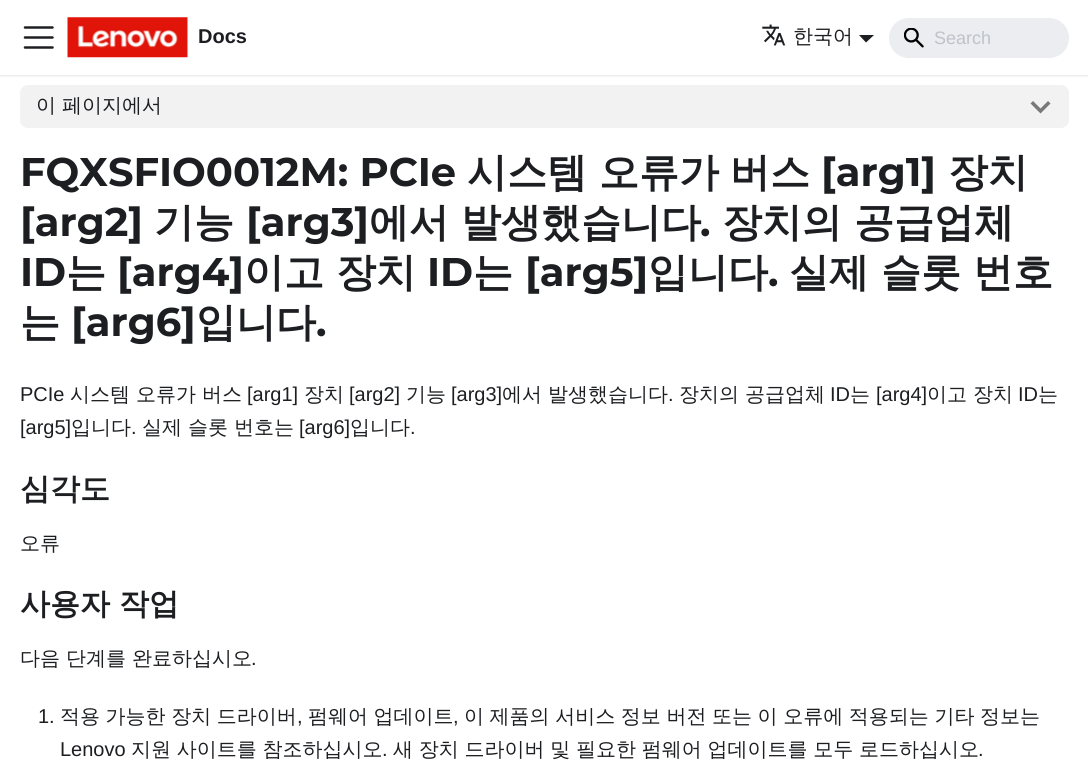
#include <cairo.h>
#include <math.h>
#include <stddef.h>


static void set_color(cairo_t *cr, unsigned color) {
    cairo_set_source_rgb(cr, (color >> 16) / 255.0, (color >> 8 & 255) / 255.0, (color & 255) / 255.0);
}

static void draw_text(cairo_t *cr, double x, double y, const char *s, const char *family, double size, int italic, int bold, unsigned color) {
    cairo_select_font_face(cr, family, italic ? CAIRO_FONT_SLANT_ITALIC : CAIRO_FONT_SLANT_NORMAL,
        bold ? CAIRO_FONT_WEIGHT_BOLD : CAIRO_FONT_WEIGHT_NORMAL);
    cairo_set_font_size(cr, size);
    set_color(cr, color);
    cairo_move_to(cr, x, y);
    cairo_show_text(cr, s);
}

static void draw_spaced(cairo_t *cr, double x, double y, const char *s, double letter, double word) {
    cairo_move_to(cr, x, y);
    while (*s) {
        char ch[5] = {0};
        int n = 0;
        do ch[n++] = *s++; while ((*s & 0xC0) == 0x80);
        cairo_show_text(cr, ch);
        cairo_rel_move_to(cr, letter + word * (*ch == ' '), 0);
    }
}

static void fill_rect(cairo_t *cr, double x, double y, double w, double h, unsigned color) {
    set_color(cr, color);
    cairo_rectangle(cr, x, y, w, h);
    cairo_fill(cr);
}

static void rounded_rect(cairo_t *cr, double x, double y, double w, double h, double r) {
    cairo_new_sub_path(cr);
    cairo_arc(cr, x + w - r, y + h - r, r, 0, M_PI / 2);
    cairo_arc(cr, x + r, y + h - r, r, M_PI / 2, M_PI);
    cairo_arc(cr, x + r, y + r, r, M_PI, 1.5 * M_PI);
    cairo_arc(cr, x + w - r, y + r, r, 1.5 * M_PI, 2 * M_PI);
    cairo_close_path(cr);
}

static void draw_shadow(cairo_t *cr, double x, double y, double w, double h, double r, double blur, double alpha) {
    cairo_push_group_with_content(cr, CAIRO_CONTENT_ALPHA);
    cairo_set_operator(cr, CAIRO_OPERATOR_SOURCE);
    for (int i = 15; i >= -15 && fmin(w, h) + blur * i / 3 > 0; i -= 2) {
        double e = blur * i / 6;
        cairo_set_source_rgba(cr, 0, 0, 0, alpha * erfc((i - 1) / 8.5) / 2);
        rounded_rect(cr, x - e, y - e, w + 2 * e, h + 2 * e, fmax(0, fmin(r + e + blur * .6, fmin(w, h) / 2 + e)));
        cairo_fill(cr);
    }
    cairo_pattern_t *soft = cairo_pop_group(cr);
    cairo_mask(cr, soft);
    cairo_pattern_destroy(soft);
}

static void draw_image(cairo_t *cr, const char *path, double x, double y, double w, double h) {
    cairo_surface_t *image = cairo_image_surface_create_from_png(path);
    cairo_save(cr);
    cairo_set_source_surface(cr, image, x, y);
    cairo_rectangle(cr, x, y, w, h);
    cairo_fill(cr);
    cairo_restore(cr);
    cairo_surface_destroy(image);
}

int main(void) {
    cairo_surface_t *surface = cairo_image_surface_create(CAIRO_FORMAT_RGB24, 1088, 762);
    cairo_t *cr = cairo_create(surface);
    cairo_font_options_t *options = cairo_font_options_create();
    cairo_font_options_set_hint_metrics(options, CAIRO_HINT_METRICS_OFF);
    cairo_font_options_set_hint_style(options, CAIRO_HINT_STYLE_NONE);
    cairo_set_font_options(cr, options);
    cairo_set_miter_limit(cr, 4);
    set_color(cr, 0xFFFFFF);
    cairo_paint(cr);
    set_color(cr, 0x000000);
    draw_shadow(cr, 0, 1, 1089, 75, 0, 1, 0.1);
    fill_rect(cr, 0, 0, 1088, 75, 0xFFFFFF);
    cairo_new_path(cr);
    cairo_move_to(cr, 25, 27.5);
    cairo_line_to(cr, 52.5, 27.5);
    cairo_move_to(cr, 25, 37.5);
    cairo_line_to(cr, 52.5, 37.5);
    cairo_move_to(cr, 25, 47.5);
    cairo_line_to(cr, 52.5, 47.5);
    set_color(cr, 0x1C1E21);
    cairo_set_line_width(cr, 2.5);
    cairo_set_line_cap(cr, CAIRO_LINE_CAP_ROUND);
    cairo_stroke(cr);
    draw_image(cr, "assets/img1.png", 67, 17, 121, 41);
    draw_text(cr, 198, 43, "Docs", "Liberation Sans", 20, 0, 1, 0x1C1E21);
    draw_image(cr, "assets/img2.png", 762, 24, 24, 22);
    draw_text(cr, 793, 43, "한국어", "WenQuanYi Zen Hei Medium", 20, 0, 0, 0x1C1E21);
    cairo_new_path(cr);
    cairo_move_to(cr, 859, 35);
    cairo_line_to(cr, 874, 35);
    cairo_line_to(cr, 866, 42.5);
    cairo_close_path(cr);
    cairo_fill(cr);
    set_color(cr, 0xEBEDF0);
    rounded_rect(cr, 889, 18, 180, 40, 20);
    cairo_fill(cr);
    draw_image(cr, "assets/img3.png", 904, 28, 20, 20);
    draw_text(cr, 934, 44, "Search", "Liberation Sans", 18, 0, 0, 0xBEC3C9);
    set_color(cr, 0xF2F2F2);
    rounded_rect(cr, 20, 85, 1049, 43, 8);
    cairo_fill(cr);
    draw_text(cr, 36, 112, "이 페이지에서", "WenQuanYi Zen Hei Medium", 20, 0, 0, 0x1C1E21);
    set_color(cr, 0x797979);
    cairo_new_path(cr);
    cairo_move_to(cr, 1048, 101);
    cairo_line_to(cr, 1040.5, 108.5);
    cairo_line_to(cr, 1033, 101);
    cairo_line_to(cr, 1030.5, 103.5);
    cairo_line_to(cr, 1040.5, 113.5);
    cairo_line_to(cr, 1050.5, 103.5);
    cairo_close_path(cr);
    cairo_fill(cr);
    draw_text(cr, 20, 186, "FQXSFIO0012M: PCIe", "Montserrat", 40, 0, 1, 0x1C1E21);
    draw_text(cr, 467, 186, "시스템", "WenQuanYi Zen Hei", 40, 0, 1, 0x1C1E21);
    draw_text(cr, 599, 186, "오류가", "WenQuanYi Zen Hei", 40, 0, 1, 0x1C1E21);
    draw_text(cr, 730, 186, "버스", "WenQuanYi Zen Hei", 40, 0, 1, 0x1C1E21);
    draw_text(cr, 821, 186, "[arg1]", "Montserrat", 40, 0, 1, 0x1C1E21);
    draw_text(cr, 948, 186, "장치", "WenQuanYi Zen Hei", 40, 0, 1, 0x1C1E21);
    draw_text(cr, 20, 236, "[arg2]", "Montserrat", 40, 0, 1, 0x1C1E21);
    draw_text(cr, 154, 236, "기능", "WenQuanYi Zen Hei", 40, 0, 1, 0x1C1E21);
    draw_text(cr, 246, 236, "[arg3]", "Montserrat", 40, 0, 1, 0x1C1E21);
    draw_text(cr, 369, 236, "에서 발생했습니다", "WenQuanYi Zen Hei", 40, 0, 1, 0x1C1E21);
    draw_text(cr, 700, 236, ".", "Montserrat", 40, 0, 1, 0x1C1E21);
    draw_text(cr, 722, 236, "장치의 공급업체", "WenQuanYi Zen Hei", 40, 0, 1, 0x1C1E21);
    draw_text(cr, 20, 286, "ID", "Montserrat", 40, 0, 1, 0x1C1E21);
    draw_text(cr, 66, 286, "는", "WenQuanYi Zen Hei", 40, 0, 1, 0x1C1E21);
    draw_text(cr, 117, 286, "[arg4]", "Montserrat", 40, 0, 1, 0x1C1E21);
    draw_text(cr, 244, 286, "이고 장치", "WenQuanYi Zen Hei", 40, 0, 1, 0x1C1E21);
    draw_text(cr, 427, 286, "ID", "Montserrat", 40, 0, 1, 0x1C1E21);
    draw_text(cr, 473, 286, "는", "WenQuanYi Zen Hei", 40, 0, 1, 0x1C1E21);
    draw_text(cr, 525, 286, "[arg5]", "Montserrat", 40, 0, 1, 0x1C1E21);
    draw_text(cr, 648, 286, "입니다", "WenQuanYi Zen Hei", 40, 0, 1, 0x1C1E21);
    draw_text(cr, 768, 286, ".", "Montserrat", 40, 0, 1, 0x1C1E21);
    draw_text(cr, 789, 286, "실제 슬롯 번호", "WenQuanYi Zen Hei", 40, 0, 1, 0x1C1E21);
    draw_text(cr, 20, 336, "는", "WenQuanYi Zen Hei", 40, 0, 1, 0x1C1E21);
    draw_text(cr, 71, 336, "[arg6]", "Montserrat", 40, 0, 1, 0x1C1E21);
    draw_text(cr, 196, 336, "입니다", "WenQuanYi Zen Hei", 40, 0, 1, 0x1C1E21);
    draw_text(cr, 316, 336, ".", "Montserrat", 40, 0, 1, 0x1C1E21);
    draw_text(cr, 20, 401, "PCIe", "Liberation Sans", 20, 0, 0, 0x1C1E21);
    draw_text(cr, 70, 401, "시스템 오류가 버스", "WenQuanYi Zen Hei Medium", 20, 0, 0, 0x1C1E21);
    draw_text(cr, 247, 401, "[arg1]", "Liberation Sans", 20, 0, 0, 0x1C1E21);
    draw_text(cr, 304, 401, "장치", "WenQuanYi Zen Hei Medium", 20, 0, 0, 0x1C1E21);
    draw_text(cr, 349, 401, "[arg2]", "Liberation Sans", 20, 0, 0, 0x1C1E21);
    draw_text(cr, 406, 401, "기능", "WenQuanYi Zen Hei Medium", 20, 0, 0, 0x1C1E21);
    draw_text(cr, 451, 401, "[arg3]", "Liberation Sans", 20, 0, 0, 0x1C1E21);
    draw_text(cr, 502, 401, "에서 발생했습니다", "WenQuanYi Zen Hei Medium", 20, 0, 0, 0x1C1E21);
    draw_text(cr, 668, 401, ".", "Liberation Sans", 20, 0, 0, 0x1C1E21);
    draw_text(cr, 679, 401, "장치의 공급업체", "WenQuanYi Zen Hei Medium", 20, 0, 0, 0x1C1E21);
    draw_text(cr, 830, 401, "ID", "Liberation Sans", 20, 0, 0, 0x1C1E21);
    draw_text(cr, 850, 401, "는", "WenQuanYi Zen Hei Medium", 20, 0, 0, 0x1C1E21);
    draw_text(cr, 876, 401, "[arg4]", "Liberation Sans", 20, 0, 0, 0x1C1E21);
    draw_text(cr, 927, 401, "이고 장치", "WenQuanYi Zen Hei Medium", 20, 0, 0, 0x1C1E21);
    draw_text(cr, 1018, 401, "ID", "Liberation Sans", 20, 0, 0, 0x1C1E21);
    draw_text(cr, 1038, 401, "는", "WenQuanYi Zen Hei Medium", 20, 0, 0, 0x1C1E21);
    draw_text(cr, 20, 434, "[arg5]", "Liberation Sans", 20, 0, 0, 0x1C1E21);
    draw_text(cr, 71, 434, "입니다", "WenQuanYi Zen Hei Medium", 20, 0, 0, 0x1C1E21);
    draw_text(cr, 131, 434, ".", "Liberation Sans", 20, 0, 0, 0x1C1E21);
    draw_text(cr, 142, 434, "실제 슬롯 번호는", "WenQuanYi Zen Hei Medium", 20, 0, 0, 0x1C1E21);
    draw_text(cr, 299, 434, "[arg6]", "Liberation Sans", 20, 0, 0, 0x1C1E21);
    draw_text(cr, 350, 434, "입니다", "WenQuanYi Zen Hei Medium", 20, 0, 0, 0x1C1E21);
    draw_text(cr, 410, 434, ".", "Liberation Sans", 20, 0, 0, 0x1C1E21);
    draw_text(cr, 20, 499, "심각도", "WenQuanYi Zen Hei", 30, 0, 1, 0x1C1E21);
    draw_text(cr, 20, 550, "오류", "WenQuanYi Zen Hei Medium", 20, 0, 0, 0x1C1E21);
    draw_text(cr, 20, 614, "사용자 작업", "WenQuanYi Zen Hei", 30, 0, 1, 0x1C1E21);
    draw_text(cr, 20, 665, "다음 단계를 완료하십시오", "WenQuanYi Zen Hei Medium", 20, 0, 0, 0x1C1E21);
    draw_text(cr, 251, 665, ".", "Liberation Sans", 20, 0, 0, 0x1C1E21);
    draw_text(cr, 38, 723, "1.", "Liberation Sans", 20, 0, 0, 0x1C1E21);
    cairo_select_font_face(cr, "WenQuanYi Zen Hei Medium", CAIRO_FONT_SLANT_NORMAL, CAIRO_FONT_WEIGHT_NORMAL);
    draw_spaced(cr, 60, 723, "적용 가능한 장치 드라이버", 0, -0.4);
    draw_text(cr, 297, 723, ",", "Liberation Sans", 20, 0, 0, 0x1C1E21);
    cairo_select_font_face(cr, "WenQuanYi Zen Hei Medium", CAIRO_FONT_SLANT_NORMAL, CAIRO_FONT_WEIGHT_NORMAL);
    draw_spaced(cr, 308, 723, "펌웨어 업데이트", 0, -0.4);
    draw_text(cr, 453, 723, ",", "Liberation Sans", 20, 0, 0, 0x1C1E21);
    cairo_select_font_face(cr, "WenQuanYi Zen Hei Medium", CAIRO_FONT_SLANT_NORMAL, CAIRO_FONT_WEIGHT_NORMAL);
    draw_spaced(cr, 464, 723, "이 제품의 서비스 정보 버전 또는 이 오류에 적용되는 기타 정보는", 0, -0.4);
    draw_text(cr, 60, 756, "Lenovo", "Liberation Sans", 20, 0, 0, 0x1C1E21);
    cairo_select_font_face(cr, "WenQuanYi Zen Hei Medium", CAIRO_FONT_SLANT_NORMAL, CAIRO_FONT_WEIGHT_NORMAL);
    draw_spaced(cr, 131, 756, "지원 사이트를 참조하십시오", 0, -0.25);
    draw_text(cr, 382, 756, ".", "Liberation Sans", 20, 0, 0, 0x1C1E21);
    cairo_select_font_face(cr, "WenQuanYi Zen Hei Medium", CAIRO_FONT_SLANT_NORMAL, CAIRO_FONT_WEIGHT_NORMAL);
    draw_spaced(cr, 393, 756, "새 장치 드라이버 및 필요한 펌웨어 업데이트를 모두 로드하십시오", 0, -0.25);
    draw_text(cr, 978, 756, ".", "Liberation Sans", 20, 0, 0, 0x1C1E21);
    cairo_surface_write_to_png(surface, "output.png");
    cairo_font_options_destroy(options);
    cairo_destroy(cr);
    cairo_surface_destroy(surface);
    return 0;
}
